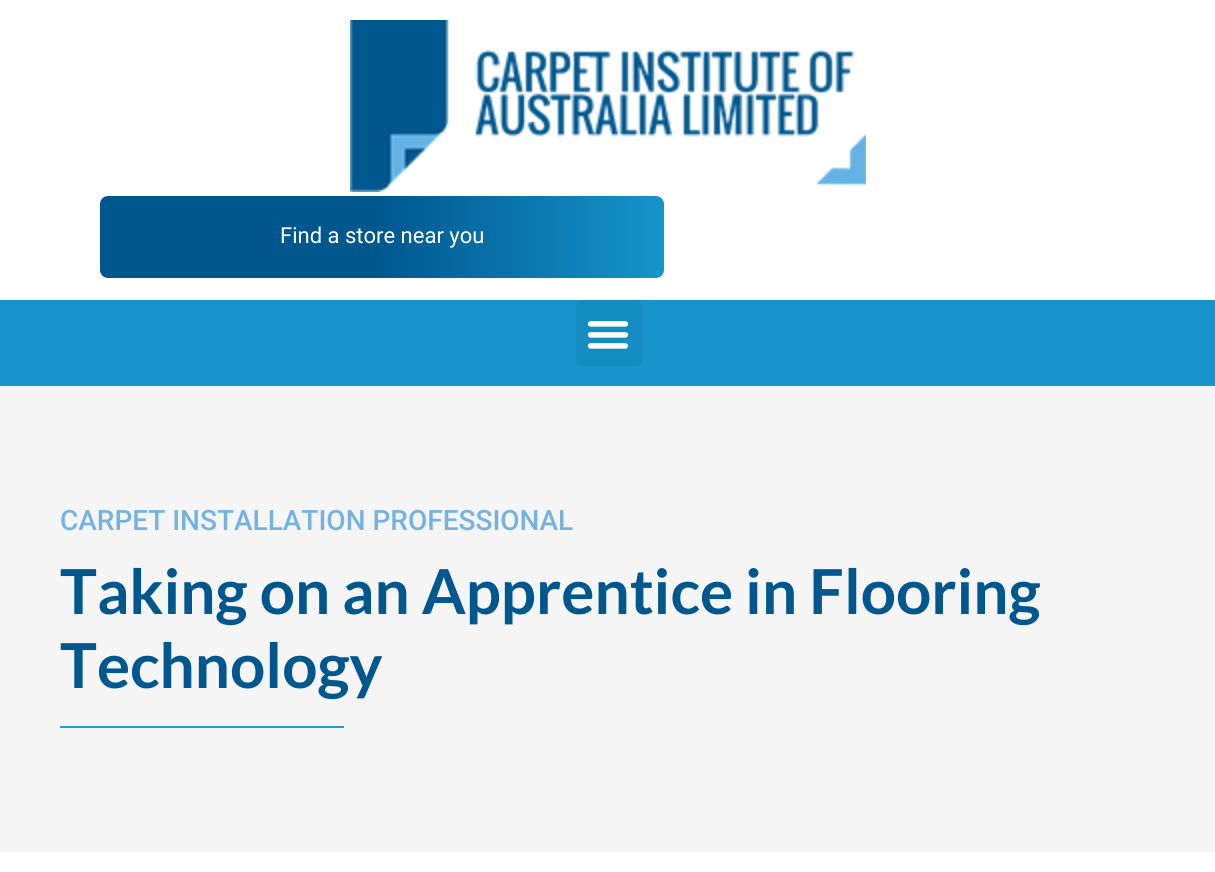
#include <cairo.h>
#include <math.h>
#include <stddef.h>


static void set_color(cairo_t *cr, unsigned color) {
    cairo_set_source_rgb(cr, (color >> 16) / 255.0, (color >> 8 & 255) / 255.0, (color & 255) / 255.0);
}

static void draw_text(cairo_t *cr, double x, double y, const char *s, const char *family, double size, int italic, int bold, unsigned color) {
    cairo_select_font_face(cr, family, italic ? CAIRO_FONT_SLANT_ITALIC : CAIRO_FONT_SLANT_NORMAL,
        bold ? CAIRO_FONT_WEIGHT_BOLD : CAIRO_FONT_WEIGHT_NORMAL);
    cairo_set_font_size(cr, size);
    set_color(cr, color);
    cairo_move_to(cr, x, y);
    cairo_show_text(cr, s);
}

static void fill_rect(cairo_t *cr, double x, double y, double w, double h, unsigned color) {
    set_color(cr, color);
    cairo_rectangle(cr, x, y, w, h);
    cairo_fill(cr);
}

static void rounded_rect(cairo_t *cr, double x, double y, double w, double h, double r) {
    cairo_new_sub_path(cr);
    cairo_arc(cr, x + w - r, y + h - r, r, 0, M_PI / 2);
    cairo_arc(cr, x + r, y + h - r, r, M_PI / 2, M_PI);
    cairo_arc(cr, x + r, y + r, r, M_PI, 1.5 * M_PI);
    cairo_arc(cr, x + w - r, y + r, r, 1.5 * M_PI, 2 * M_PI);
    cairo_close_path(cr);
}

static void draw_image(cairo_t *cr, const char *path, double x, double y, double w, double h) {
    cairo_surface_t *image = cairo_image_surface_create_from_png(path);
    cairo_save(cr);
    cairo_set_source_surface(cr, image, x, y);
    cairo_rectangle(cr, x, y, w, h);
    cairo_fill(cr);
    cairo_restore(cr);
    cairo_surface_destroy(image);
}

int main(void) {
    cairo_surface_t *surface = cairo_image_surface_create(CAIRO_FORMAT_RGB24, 1215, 872);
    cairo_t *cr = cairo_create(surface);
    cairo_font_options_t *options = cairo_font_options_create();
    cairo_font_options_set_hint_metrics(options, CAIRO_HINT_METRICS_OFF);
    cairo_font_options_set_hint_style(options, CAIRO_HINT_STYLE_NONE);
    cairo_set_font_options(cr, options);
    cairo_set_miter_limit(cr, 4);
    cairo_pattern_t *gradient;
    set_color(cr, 0xFFFFFF);
    cairo_paint(cr);
    draw_image(cr, "assets/img1.png", 350, 20, 516, 172);
    gradient = cairo_pattern_create_linear(100, 237, 664, 237);
    cairo_pattern_add_color_stop_rgba(gradient, 0.49, 0, 0.341, 0.557, 1);
    cairo_pattern_add_color_stop_rgba(gradient, 1, 0.09, 0.58, 0.796, 1);
    cairo_set_source(cr, gradient);
    cairo_pattern_destroy(gradient);
    rounded_rect(cr, 100, 196, 564, 82, 8);
    cairo_fill(cr);
    draw_text(cr, 280, 243, "Find a store near you", "Roboto", 22, 0, 0, 0xFFFFFF);
    fill_rect(cr, 0, 300, 1215, 86, 0x1794CB);
    set_color(cr, 0x168DC1);
    rounded_rect(cr, 576, 300, 66, 66, 6);
    cairo_fill(cr);
    draw_image(cr, "assets/img2.png", 587, 321, 42, 28);
    fill_rect(cr, 0, 386, 1215, 466, 0xF5F5F5);
    draw_text(cr, 60, 530, "CARPET INSTALLATION PROFESSIONAL", "Roboto Medium", 28, 0, 0, 0x74B2DF);
    draw_text(cr, 60, 614, "Taking on an Apprentice in Flooring", "Lato", 62, 0, 1, 0x00578E);
    draw_text(cr, 60, 688, "Technology", "Lato", 62, 0, 1, 0x00578E);
    fill_rect(cr, 60, 726, 284, 2, 0x219CD4);
    cairo_surface_write_to_png(surface, "output.png");
    cairo_font_options_destroy(options);
    cairo_destroy(cr);
    cairo_surface_destroy(surface);
    return 0;
}
